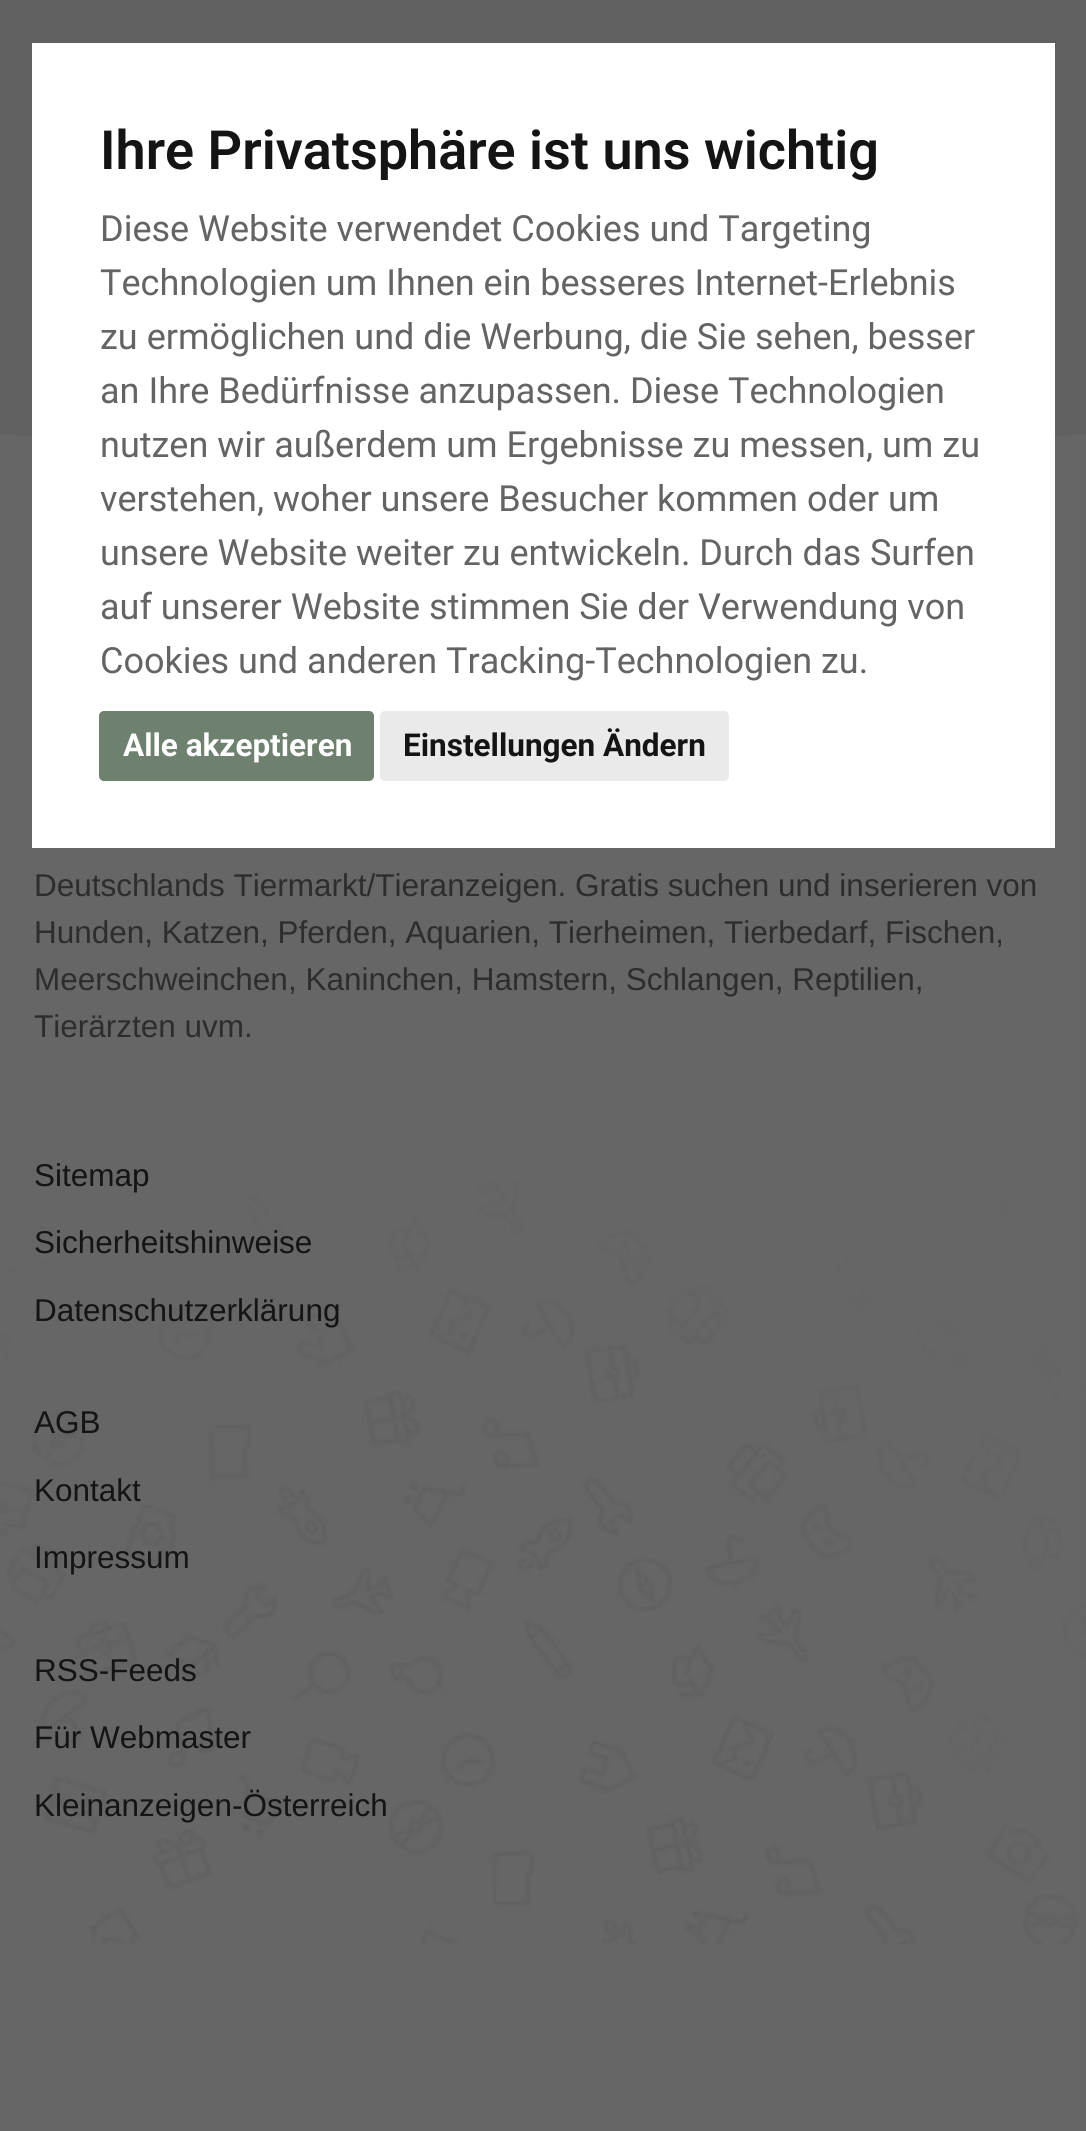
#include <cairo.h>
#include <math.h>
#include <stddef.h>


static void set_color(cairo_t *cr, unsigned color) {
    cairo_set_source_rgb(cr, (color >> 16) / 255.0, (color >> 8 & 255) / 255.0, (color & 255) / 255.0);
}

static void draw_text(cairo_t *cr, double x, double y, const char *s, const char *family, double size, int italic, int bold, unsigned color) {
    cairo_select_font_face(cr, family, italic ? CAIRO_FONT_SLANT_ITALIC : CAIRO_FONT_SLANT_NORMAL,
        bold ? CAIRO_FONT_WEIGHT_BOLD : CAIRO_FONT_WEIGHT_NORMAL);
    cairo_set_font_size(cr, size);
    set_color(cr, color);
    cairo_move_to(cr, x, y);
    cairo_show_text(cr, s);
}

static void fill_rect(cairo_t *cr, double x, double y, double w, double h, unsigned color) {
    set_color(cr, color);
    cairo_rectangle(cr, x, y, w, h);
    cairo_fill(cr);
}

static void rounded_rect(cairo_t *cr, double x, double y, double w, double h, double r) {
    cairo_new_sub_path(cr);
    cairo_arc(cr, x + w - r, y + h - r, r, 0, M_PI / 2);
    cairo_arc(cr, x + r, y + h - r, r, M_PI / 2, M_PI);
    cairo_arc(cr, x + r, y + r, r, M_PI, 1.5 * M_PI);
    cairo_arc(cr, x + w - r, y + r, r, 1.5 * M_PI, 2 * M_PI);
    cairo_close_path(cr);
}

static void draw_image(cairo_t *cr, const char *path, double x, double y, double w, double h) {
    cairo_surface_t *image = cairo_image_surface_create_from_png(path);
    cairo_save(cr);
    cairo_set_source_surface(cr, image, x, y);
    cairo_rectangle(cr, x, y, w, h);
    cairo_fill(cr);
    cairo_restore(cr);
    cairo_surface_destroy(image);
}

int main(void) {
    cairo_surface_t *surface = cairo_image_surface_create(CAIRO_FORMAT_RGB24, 1086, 2131);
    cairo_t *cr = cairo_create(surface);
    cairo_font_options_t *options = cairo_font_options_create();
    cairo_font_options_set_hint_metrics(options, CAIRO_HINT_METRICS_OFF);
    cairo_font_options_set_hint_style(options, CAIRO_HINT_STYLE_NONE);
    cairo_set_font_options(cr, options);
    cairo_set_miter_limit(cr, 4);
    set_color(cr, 0x616161);
    cairo_paint(cr);
    fill_rect(cr, 0, 434, 1086, 1697, 0x666666);
    draw_image(cr, "assets/img1.png", 0, 432, 1086, 5);
    fill_rect(cr, 32, 43, 1023, 805, 0xFFFFFF);
    draw_text(cr, 100, 169, "Ihre Privatsphäre ist uns wichtig", "Roboto SemiBold", 54, 0, 0, 0x141414);
    draw_text(cr, 100, 241, "Diese Website verwendet Cookies und Targeting", "Roboto", 36, 0, 0, 0x646464);
    draw_text(cr, 100, 295, "Technologien um Ihnen ein besseres Internet-Erlebnis", "Roboto", 36, 0, 0, 0x646464);
    draw_text(cr, 100, 349, "zu ermöglichen und die Werbung, die Sie sehen, besser", "Roboto", 36, 0, 0, 0x646464);
    draw_text(cr, 100, 403, "an Ihre Bedürfnisse anzupassen. Diese Technologien", "Roboto", 36, 0, 0, 0x646464);
    draw_text(cr, 100, 457, "nutzen wir außerdem um Ergebnisse zu messen, um zu", "Roboto", 36, 0, 0, 0x646464);
    draw_text(cr, 100, 511, "verstehen, woher unsere Besucher kommen oder um", "Roboto", 36, 0, 0, 0x646464);
    draw_text(cr, 100, 565, "unsere Website weiter zu entwickeln. Durch das Surfen", "Roboto", 36, 0, 0, 0x646464);
    draw_text(cr, 100, 619, "auf unserer Website stimmen Sie der Verwendung von", "Roboto", 36, 0, 0, 0x646464);
    draw_text(cr, 100, 673, "Cookies und anderen Tracking-Technologien zu.", "Roboto", 36, 0, 0, 0x646464);
    set_color(cr, 0x6E816E);
    rounded_rect(cr, 99, 711, 275, 70, 5);
    cairo_fill(cr);
    draw_text(cr, 123, 756, "Alle akzeptieren", "Roboto", 31.5, 0, 1, 0xFFFFFF);
    set_color(cr, 0xEAEAEA);
    rounded_rect(cr, 380, 711, 349, 70, 5);
    cairo_fill(cr);
    draw_text(cr, 403, 756, "Einstellungen Ändern", "Roboto", 31.5, 0, 1, 0x141414);
    draw_image(cr, "assets/img2.png", 0, 1181, 1086, 763);
    draw_text(cr, 34, 896, "Deutschlands Tiermarkt/Tieranzeigen. Gratis suchen und inserieren von", "Liberation Sans", 31.5, 0, 0, 0x2C2D2E);
    draw_text(cr, 34, 943, "Hunden, Katzen, Pferden, Aquarien, Tierheimen, Tierbedarf, Fischen,", "Liberation Sans", 31.5, 0, 0, 0x2C2D2E);
    draw_text(cr, 34, 990, "Meerschweinchen, Kaninchen, Hamstern, Schlangen, Reptilien,", "Liberation Sans", 31.5, 0, 0, 0x2C2D2E);
    draw_text(cr, 34, 1037, "Tierärzten uvm.", "Liberation Sans", 31.5, 0, 0, 0x2C2D2E);
    draw_text(cr, 34, 1186, "Sitemap", "Liberation Sans", 31.5, 0, 0, 0x141414);
    draw_text(cr, 34, 1253, "Sicherheitshinweise", "Liberation Sans", 31.5, 0, 0, 0x141414);
    draw_text(cr, 34, 1321, "Datenschutzerklärung", "Liberation Sans", 31.5, 0, 0, 0x141414);
    draw_text(cr, 34, 1433, "AGB", "Liberation Sans", 31.5, 0, 0, 0x141414);
    draw_text(cr, 34, 1501, "Kontakt", "Liberation Sans", 31.5, 0, 0, 0x141414);
    draw_text(cr, 34, 1568, "Impressum", "Liberation Sans", 31.5, 0, 0, 0x141414);
    draw_text(cr, 34, 1681, "RSS-Feeds", "Liberation Sans", 31.5, 0, 0, 0x141414);
    draw_text(cr, 34, 1748, "Für Webmaster", "Liberation Sans", 31.5, 0, 0, 0x141414);
    draw_text(cr, 34, 1816, "Kleinanzeigen-Österreich", "Liberation Sans", 31.5, 0, 0, 0x141414);
    cairo_surface_write_to_png(surface, "output.png");
    cairo_font_options_destroy(options);
    cairo_destroy(cr);
    cairo_surface_destroy(surface);
    return 0;
}
